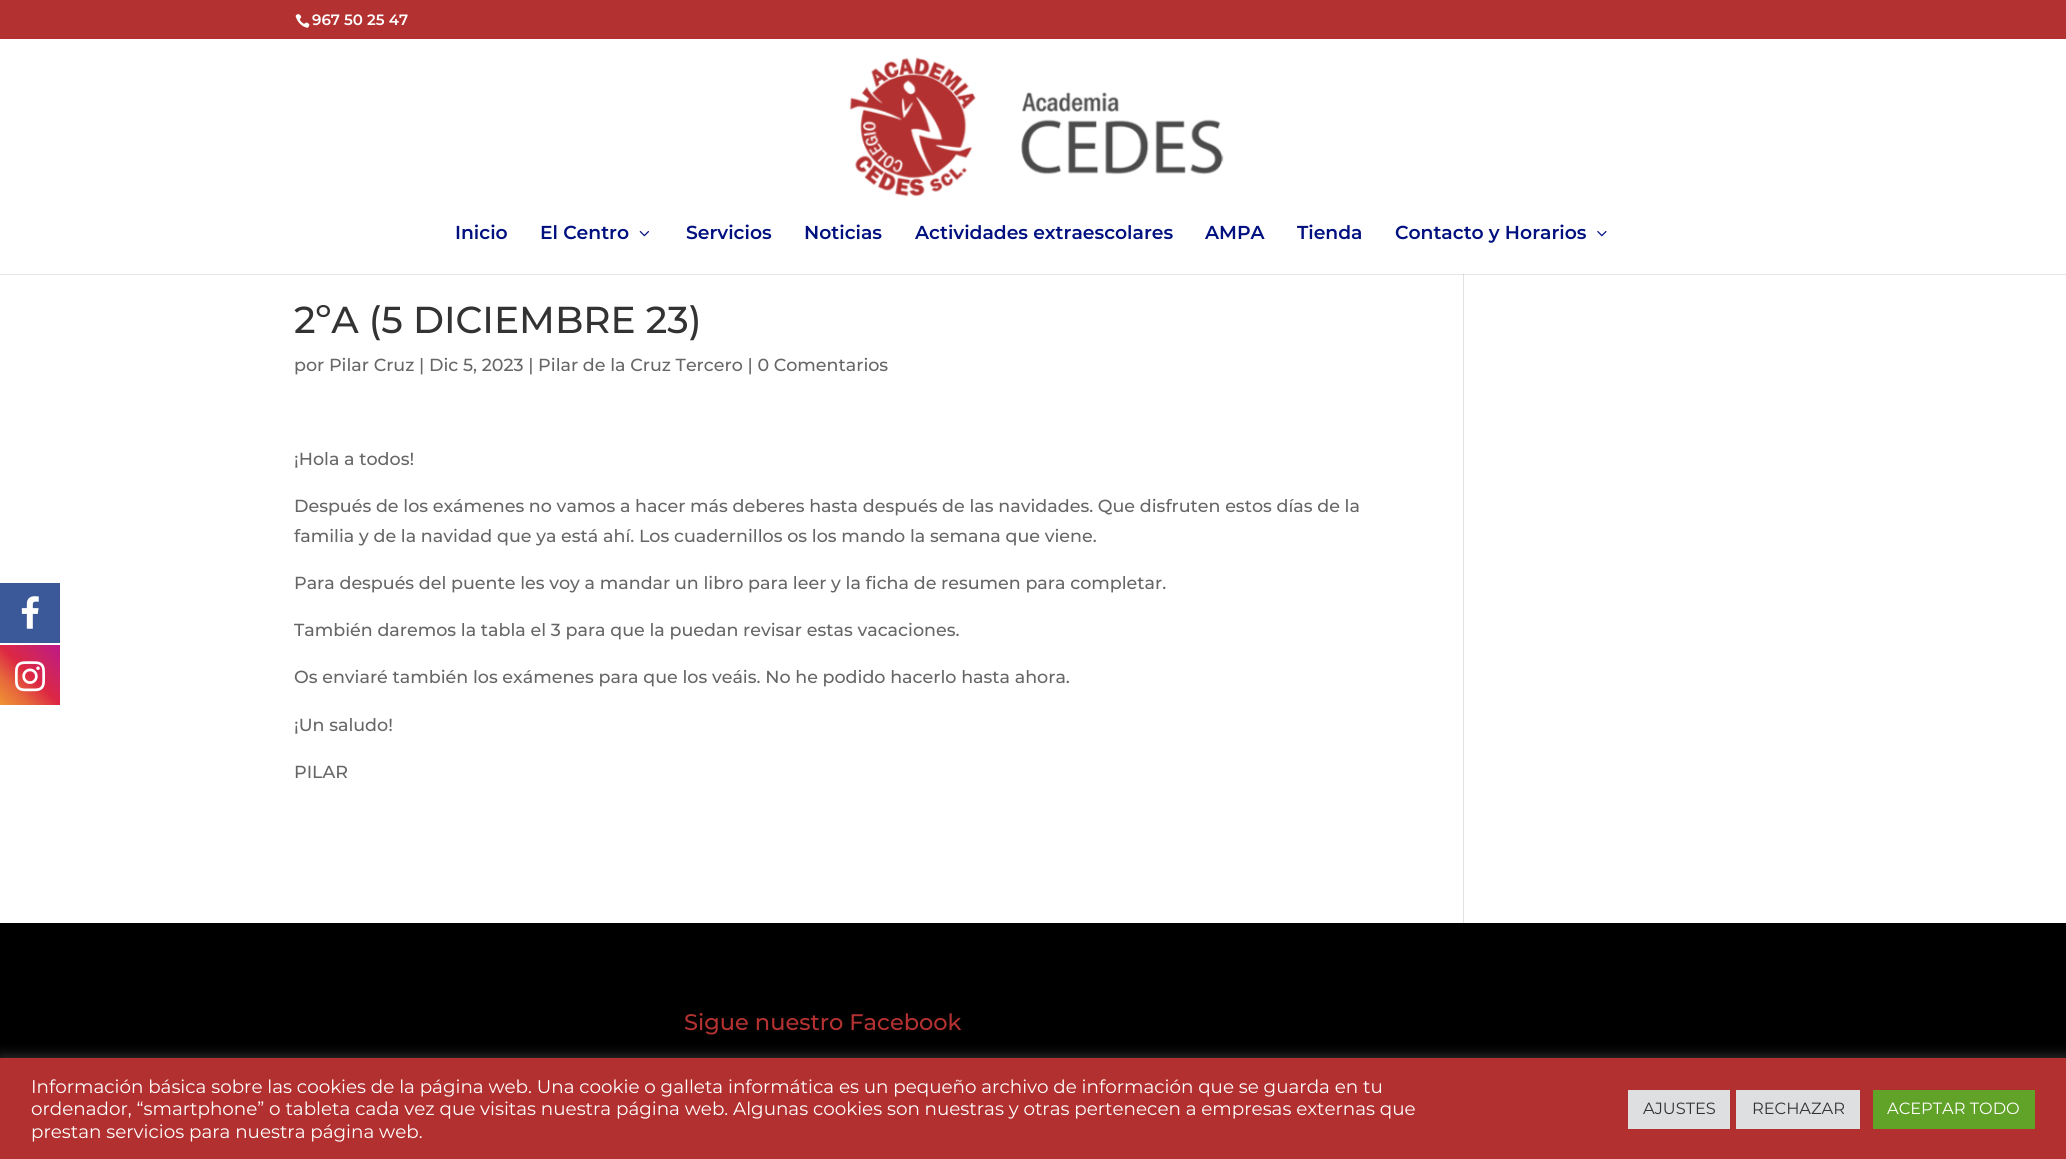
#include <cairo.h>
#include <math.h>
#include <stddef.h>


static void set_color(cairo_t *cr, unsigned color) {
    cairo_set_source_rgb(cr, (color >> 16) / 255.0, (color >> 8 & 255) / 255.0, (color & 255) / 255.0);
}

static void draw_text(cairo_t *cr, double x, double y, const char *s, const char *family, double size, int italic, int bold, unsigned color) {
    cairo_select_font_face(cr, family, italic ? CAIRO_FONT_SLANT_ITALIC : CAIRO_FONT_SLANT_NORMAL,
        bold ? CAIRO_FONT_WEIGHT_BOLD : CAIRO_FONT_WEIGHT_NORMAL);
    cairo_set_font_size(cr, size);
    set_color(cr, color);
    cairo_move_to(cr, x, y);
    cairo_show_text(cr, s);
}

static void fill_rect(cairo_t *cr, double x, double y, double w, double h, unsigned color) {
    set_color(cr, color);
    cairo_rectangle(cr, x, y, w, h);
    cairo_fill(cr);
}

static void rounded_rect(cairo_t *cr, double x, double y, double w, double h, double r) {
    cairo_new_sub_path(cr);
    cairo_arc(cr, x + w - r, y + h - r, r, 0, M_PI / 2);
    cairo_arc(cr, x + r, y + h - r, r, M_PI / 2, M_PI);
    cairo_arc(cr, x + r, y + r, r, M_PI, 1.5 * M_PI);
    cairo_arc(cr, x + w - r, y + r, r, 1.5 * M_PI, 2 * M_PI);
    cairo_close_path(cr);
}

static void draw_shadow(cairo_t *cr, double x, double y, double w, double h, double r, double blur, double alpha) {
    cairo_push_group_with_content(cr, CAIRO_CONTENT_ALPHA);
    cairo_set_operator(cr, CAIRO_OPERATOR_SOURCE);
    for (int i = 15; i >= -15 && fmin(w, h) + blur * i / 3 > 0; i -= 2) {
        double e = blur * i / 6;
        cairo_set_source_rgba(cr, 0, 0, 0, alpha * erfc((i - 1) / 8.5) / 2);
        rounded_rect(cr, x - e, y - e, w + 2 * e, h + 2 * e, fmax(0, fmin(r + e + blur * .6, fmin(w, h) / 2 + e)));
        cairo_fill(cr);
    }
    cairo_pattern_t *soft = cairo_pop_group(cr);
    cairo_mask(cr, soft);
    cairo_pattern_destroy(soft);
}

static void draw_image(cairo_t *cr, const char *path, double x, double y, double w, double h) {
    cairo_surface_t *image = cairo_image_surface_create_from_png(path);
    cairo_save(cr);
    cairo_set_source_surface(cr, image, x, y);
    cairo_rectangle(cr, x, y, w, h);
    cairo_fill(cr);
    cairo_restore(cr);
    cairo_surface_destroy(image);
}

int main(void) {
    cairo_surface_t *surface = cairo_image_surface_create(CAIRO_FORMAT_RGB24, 2066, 1159);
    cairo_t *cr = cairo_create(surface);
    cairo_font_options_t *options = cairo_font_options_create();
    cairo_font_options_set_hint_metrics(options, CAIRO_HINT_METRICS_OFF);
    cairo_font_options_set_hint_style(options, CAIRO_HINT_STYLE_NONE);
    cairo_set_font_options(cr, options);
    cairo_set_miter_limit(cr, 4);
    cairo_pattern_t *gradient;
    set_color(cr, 0xFFFFFF);
    cairo_paint(cr);
    fill_rect(cr, 0, 274, 2066, 1, 0xE6E6E6);
    fill_rect(cr, 0, 583, 60, 60, 0x3B5998);
    draw_image(cr, "assets/img1.png", 21, 596, 18, 33);
    gradient = cairo_pattern_create_linear(0, 705, 60, 645);
    cairo_pattern_add_color_stop_rgba(gradient, 0, 0.941, 0.58, 0.2, 1);
    cairo_pattern_add_color_stop_rgba(gradient, 0.25, 0.902, 0.408, 0.235, 1);
    cairo_pattern_add_color_stop_rgba(gradient, 0.5, 0.863, 0.153, 0.263, 1);
    cairo_pattern_add_color_stop_rgba(gradient, 0.75, 0.8, 0.137, 0.4, 1);
    cairo_pattern_add_color_stop_rgba(gradient, 1, 0.737, 0.094, 0.533, 1);
    cairo_set_source(cr, gradient);
    cairo_pattern_destroy(gradient);
    cairo_rectangle(cr, 0, 645, 60, 60);
    cairo_fill(cr);
    draw_image(cr, "assets/img2.png", 15, 661, 30, 31);
    fill_rect(cr, 0, 0, 2066, 39, 0xB33130);
    draw_image(cr, "assets/img3.png", 295, 14, 15, 14);
    draw_text(cr, 312, 25, "967 50 25 47", "Montserrat SemiBold", 15, 0, 0, 0xFFFFFF);
    draw_image(cr, "assets/img4.png", 849, 57, 375, 140);
    draw_text(cr, 455, 239, "Inicio", "Montserrat SemiBold", 18.75, 0, 0, 0x00107F);
    draw_text(cr, 540, 239, "El Centro", "Montserrat SemiBold", 18.75, 0, 0, 0x00107F);
    draw_image(cr, "assets/img5.png", 639, 231, 10, 6);
    draw_text(cr, 686, 239, "Servicios", "Montserrat SemiBold", 18.75, 0, 0, 0x00107F);
    draw_text(cr, 804, 239, "Noticias", "Montserrat SemiBold", 18.75, 0, 0, 0x00107F);
    draw_text(cr, 915, 239, "Actividades extraescolares", "Montserrat SemiBold", 18.75, 0, 0, 0x00107F);
    draw_text(cr, 1205, 239, "AMPA", "Montserrat SemiBold", 18.75, 0, 0, 0x00107F);
    draw_text(cr, 1297, 239, "Tienda", "Montserrat SemiBold", 18.75, 0, 0, 0x00107F);
    draw_text(cr, 1395, 239, "Contacto y Horarios", "Montserrat SemiBold", 18.75, 0, 0, 0x00107F);
    draw_image(cr, "assets/img6.png", 1597, 231, 10, 6);
    draw_text(cr, 294, 333, "2ºA (5 DICIEMBRE 23)", "Montserrat Medium", 37.5, 0, 0, 0x333333);
    draw_text(cr, 294, 371, "por Pilar Cruz | Dic 5, 2023 | Pilar de la Cruz Tercero | 0 Comentarios", "Montserrat Medium", 17.5, 0, 0, 0x666666);
    draw_text(cr, 294, 465, "¡Hola a todos!", "Montserrat Medium", 17.5, 0, 0, 0x666666);
    draw_text(cr, 294, 512, "Después de los exámenes no vamos a hacer más deberes hasta después de las navidades. Que disfruten estos días de la", "Montserrat Medium", 17.5, 0, 0, 0x666666);
    draw_text(cr, 294, 542, "familia y de la navidad que ya está ahí. Los cuadernillos os los mando la semana que viene.", "Montserrat Medium", 17.5, 0, 0, 0x666666);
    draw_text(cr, 294, 589, "Para después del puente les voy a mandar un libro para leer y la ficha de resumen para completar.", "Montserrat Medium", 17.5, 0, 0, 0x666666);
    draw_text(cr, 294, 636, "También daremos la tabla el 3 para que la puedan revisar estas vacaciones.", "Montserrat Medium", 17.5, 0, 0, 0x666666);
    draw_text(cr, 294, 683, "Os enviaré también los exámenes para que los veáis. No he podido hacerlo hasta ahora.", "Montserrat Medium", 17.5, 0, 0, 0x666666);
    draw_text(cr, 294, 731, "¡Un saludo!", "Montserrat Medium", 17.5, 0, 0, 0x666666);
    draw_text(cr, 294, 778, "PILAR", "Montserrat Medium", 17.5, 0, 0, 0x666666);
    fill_rect(cr, 1463, 275, 1, 648, 0xE2E2E2);
    fill_rect(cr, 1463, 274, 1, 1, 0xCBCBCB);
    fill_rect(cr, 0, 923, 2066, 135, 0x000000);
    draw_text(cr, 684, 1030, "Sigue nuestro Facebook", "Montserrat Medium", 22.5, 0, 0, 0xB33130);
    set_color(cr, 0xACABAB);
    draw_shadow(cr, 0, 1056, 2066, 103, 0, 6, 0.3);
    fill_rect(cr, 0, 1058, 2066, 101, 0xB33030);
    draw_text(cr, 31, 1093, "Información básica sobre las cookies de la página web. Una cookie o galleta informática es un pequeño archivo de información que se guarda en tu", "Montserrat", 18.33, 0, 0, 0xFFFFFF);
    draw_text(cr, 31, 1115, "ordenador, “smartphone” o tableta cada vez que visitas nuestra página web. Algunas cookies son nuestras y otras pertenecen a empresas externas que", "Montserrat", 18.33, 0, 0, 0xFFFFFF);
    draw_text(cr, 31, 1138, "prestan servicios para nuestra página web.", "Montserrat", 18.33, 0, 0, 0xFFFFFF);
    fill_rect(cr, 1628, 1090, 102, 39, 0xDEDFE0);
    draw_text(cr, 1643, 1114, "AJUSTES", "Montserrat", 16.25, 0, 0, 0x333333);
    fill_rect(cr, 1736, 1090, 124, 39, 0xDEDFE0);
    draw_text(cr, 1752, 1114, "RECHAZAR", "Montserrat", 16.25, 0, 0, 0x333333);
    fill_rect(cr, 1873, 1090, 162, 39, 0x61A229);
    draw_text(cr, 1887, 1114, "ACEPTAR TODO", "Montserrat", 16.25, 0, 0, 0xFFFFFF);
    cairo_surface_write_to_png(surface, "output.png");
    cairo_font_options_destroy(options);
    cairo_destroy(cr);
    cairo_surface_destroy(surface);
    return 0;
}
